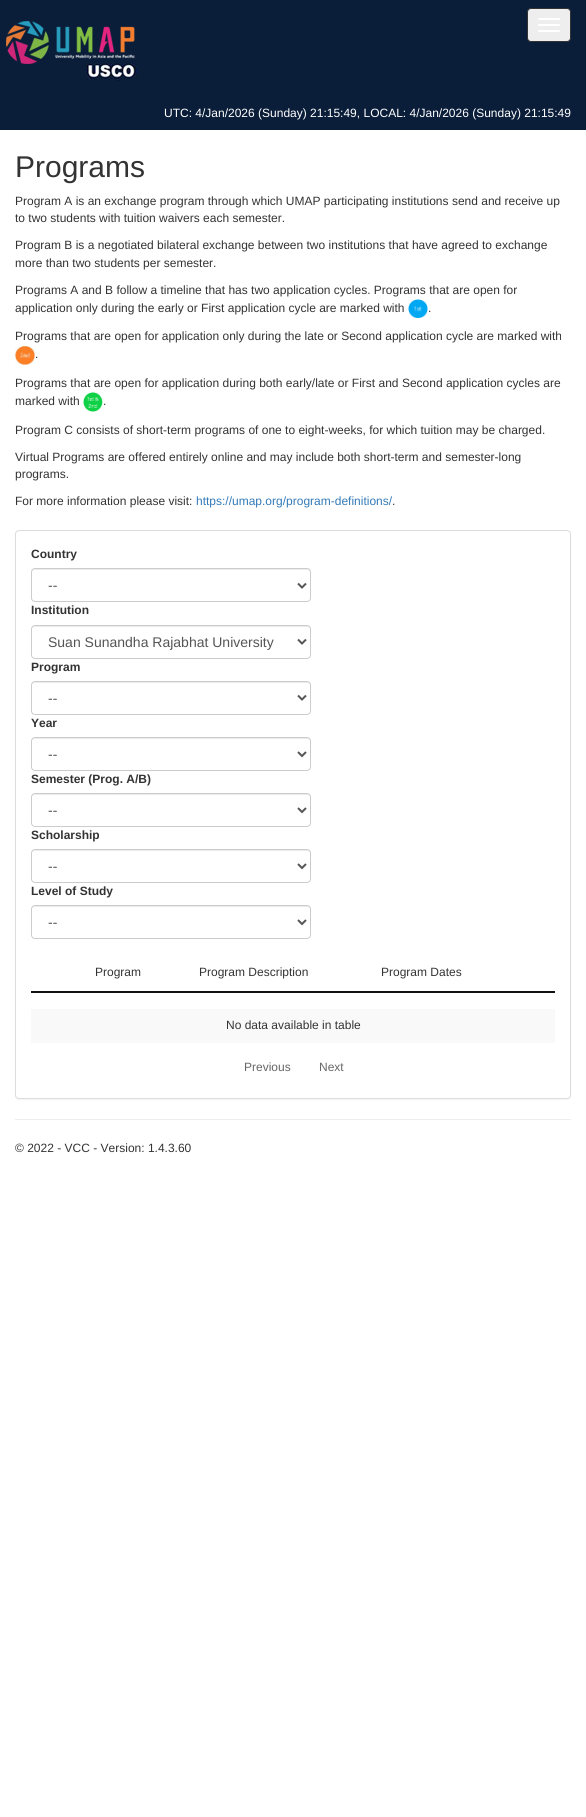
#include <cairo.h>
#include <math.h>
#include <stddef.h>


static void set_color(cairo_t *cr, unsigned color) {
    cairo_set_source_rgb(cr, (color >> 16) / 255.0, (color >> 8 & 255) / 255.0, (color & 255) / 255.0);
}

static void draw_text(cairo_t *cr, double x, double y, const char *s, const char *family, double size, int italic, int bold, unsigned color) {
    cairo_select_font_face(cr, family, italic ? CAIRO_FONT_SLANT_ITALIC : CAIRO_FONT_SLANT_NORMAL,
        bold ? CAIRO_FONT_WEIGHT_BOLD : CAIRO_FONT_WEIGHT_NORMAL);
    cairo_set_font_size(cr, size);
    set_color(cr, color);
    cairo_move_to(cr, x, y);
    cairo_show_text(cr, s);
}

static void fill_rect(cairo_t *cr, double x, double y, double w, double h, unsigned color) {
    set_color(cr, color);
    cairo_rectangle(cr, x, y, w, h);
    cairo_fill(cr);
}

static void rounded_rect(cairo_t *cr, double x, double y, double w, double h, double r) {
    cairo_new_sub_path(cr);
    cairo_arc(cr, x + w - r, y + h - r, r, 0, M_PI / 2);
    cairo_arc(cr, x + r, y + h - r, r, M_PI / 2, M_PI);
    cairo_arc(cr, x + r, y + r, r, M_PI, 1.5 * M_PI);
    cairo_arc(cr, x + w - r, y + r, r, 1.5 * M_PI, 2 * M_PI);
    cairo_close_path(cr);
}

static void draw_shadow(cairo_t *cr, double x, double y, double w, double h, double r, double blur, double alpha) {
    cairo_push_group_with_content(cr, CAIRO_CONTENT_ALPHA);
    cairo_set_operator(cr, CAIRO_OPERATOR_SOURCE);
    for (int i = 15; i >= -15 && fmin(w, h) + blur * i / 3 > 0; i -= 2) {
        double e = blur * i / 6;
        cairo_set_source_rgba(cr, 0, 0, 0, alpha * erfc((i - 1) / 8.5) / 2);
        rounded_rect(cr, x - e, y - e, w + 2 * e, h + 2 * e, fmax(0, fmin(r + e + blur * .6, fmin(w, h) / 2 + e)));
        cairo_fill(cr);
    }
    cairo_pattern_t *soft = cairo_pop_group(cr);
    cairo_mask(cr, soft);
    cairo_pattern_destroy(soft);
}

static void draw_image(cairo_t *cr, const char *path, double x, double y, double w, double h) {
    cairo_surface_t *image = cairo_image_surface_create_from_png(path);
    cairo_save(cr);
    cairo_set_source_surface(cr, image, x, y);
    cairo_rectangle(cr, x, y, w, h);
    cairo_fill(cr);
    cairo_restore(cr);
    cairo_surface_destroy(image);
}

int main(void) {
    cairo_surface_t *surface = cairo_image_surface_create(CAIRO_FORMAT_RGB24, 586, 1817);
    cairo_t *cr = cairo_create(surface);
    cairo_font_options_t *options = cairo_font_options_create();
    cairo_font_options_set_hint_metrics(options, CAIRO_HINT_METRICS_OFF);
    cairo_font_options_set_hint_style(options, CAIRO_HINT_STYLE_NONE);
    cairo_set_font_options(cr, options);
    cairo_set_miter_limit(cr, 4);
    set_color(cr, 0xFFFFFF);
    cairo_paint(cr);
    fill_rect(cr, 0, 0, 586, 130, 0x0A1D39);
    draw_image(cr, "assets/img1.png", 6, 21, 132, 60);
    set_color(cr, 0xEEEEEE);
    rounded_rect(cr, 527.5, 8.5, 43, 33, 3.5);
    cairo_fill_preserve(cr);
    set_color(cr, 0x333333);
    cairo_set_line_width(cr, 1);
    cairo_stroke(cr);
    set_color(cr, 0xFFFFFF);
    rounded_rect(cr, 538, 18, 22, 2, 1);
    cairo_fill(cr);
    rounded_rect(cr, 538, 24, 22, 2, 1);
    cairo_fill(cr);
    rounded_rect(cr, 538, 30, 22, 2, 1);
    cairo_fill(cr);
    draw_text(cr, 164, 117, "UTC: 4/Jan/2026 (Sunday) 21:15:49, LOCAL: 4/Jan/2026 (Sunday) 21:15:49", "Liberation Sans", 12, 0, 0, 0xFFFFFF);
    draw_text(cr, 15, 177, "Programs", "Liberation Sans", 30, 0, 0, 0x333333);
    draw_text(cr, 15, 205, "Program A is an exchange program through which UMAP participating institutions send and receive up", "Liberation Sans", 12, 0, 0, 0x333333);
    draw_text(cr, 15, 222, "to two students with tuition waivers each semester.", "Liberation Sans", 12, 0, 0, 0x333333);
    draw_text(cr, 15, 249, "Program B is a negotiated bilateral exchange between two institutions that have agreed to exchange", "Liberation Sans", 12, 0, 0, 0x333333);
    draw_text(cr, 15, 267, "more than two students per semester.", "Liberation Sans", 12, 0, 0, 0x333333);
    draw_text(cr, 15, 294, "Programs A and B follow a timeline that has two application cycles. Programs that are open for", "Liberation Sans", 12, 0, 0, 0x333333);
    draw_text(cr, 15, 312, "application only during the early or First application cycle are marked with", "Liberation Sans", 12, 0, 0, 0x333333);
    draw_image(cr, "assets/img2.png", 408, 299, 20, 19);
    draw_text(cr, 428, 312, ".", "Liberation Sans", 12, 0, 0, 0x333333);
    draw_text(cr, 15, 340, "Programs that are open for application only during the late or Second application cycle are marked with", "Liberation Sans", 12, 0, 0, 0x333333);
    draw_image(cr, "assets/img3.png", 15, 346, 20, 19);
    draw_text(cr, 35, 358, ".", "Liberation Sans", 12, 0, 0, 0x333333);
    draw_text(cr, 15, 387, "Programs that are open for application during both early/late or First and Second application cycles are", "Liberation Sans", 12, 0, 0, 0x333333);
    draw_text(cr, 15, 405, "marked with", "Liberation Sans", 12, 0, 0, 0x333333);
    draw_image(cr, "assets/img4.png", 83, 392, 20, 20);
    draw_text(cr, 103, 405, ".", "Liberation Sans", 12, 0, 0, 0x333333);
    draw_text(cr, 15, 434, "Program C consists of short-term programs of one to eight-weeks, for which tuition may be charged.", "Liberation Sans", 12, 0, 0, 0x333333);
    draw_text(cr, 15, 461, "Virtual Programs are offered entirely online and may include both short-term and semester-long", "Liberation Sans", 12, 0, 0, 0x333333);
    draw_text(cr, 15, 478, "programs.", "Liberation Sans", 12, 0, 0, 0x333333);
    draw_text(cr, 15, 505, "For more information please visit:", "Liberation Sans", 12, 0, 0, 0x333333);
    draw_text(cr, 196, 505, "https://umap.org/program-definitions/", "Liberation Sans", 12, 0, 0, 0x337AB7);
    draw_text(cr, 392, 505, ".", "Liberation Sans", 12, 0, 0, 0x333333);
    set_color(cr, 0x000000);
    draw_shadow(cr, 15, 531, 556, 569, 4, 0.5, 0.05);
    set_color(cr, 0xFFFFFF);
    rounded_rect(cr, 15.5, 530.5, 555, 568, 3.5);
    cairo_fill_preserve(cr);
    set_color(cr, 0xDDDDDD);
    cairo_stroke(cr);
    draw_text(cr, 31, 558, "Country", "Liberation Sans", 12, 0, 1, 0x333333);
    set_color(cr, 0xECECEC);
    cairo_new_path(cr);
    cairo_move_to(cr, 35, 570);
    cairo_line_to(cr, 307, 570);
    cairo_curve_to(cr, 309, 570, 310, 571, 310, 573);
    cairo_line_to(cr, 310, 572);
    cairo_curve_to(cr, 310, 570, 309, 569, 307, 569);
    cairo_line_to(cr, 35, 569);
    cairo_curve_to(cr, 33, 569, 32, 570, 32, 572);
    cairo_line_to(cr, 32, 573);
    cairo_curve_to(cr, 32, 571, 33, 570, 35, 570);
    cairo_close_path(cr);
    cairo_fill(cr);
    rounded_rect(cr, 31.5, 568.5, 279, 33, 3.5);
    set_color(cr, 0xCCCCCC);
    cairo_stroke(cr);
    cairo_new_path(cr);
    cairo_move_to(cr, 298, 583.5);
    cairo_line_to(cr, 302, 587.5);
    cairo_line_to(cr, 306, 583.5);
    set_color(cr, 0x555555);
    cairo_set_line_width(cr, 2);
    cairo_stroke(cr);
    draw_text(cr, 48, 590, "--", "Liberation Sans", 14, 0, 0, 0x555555);
    draw_text(cr, 31, 614, "Institution", "Liberation Sans", 12, 0, 1, 0x333333);
    set_color(cr, 0xECECEC);
    cairo_new_path(cr);
    cairo_move_to(cr, 35, 627);
    cairo_line_to(cr, 307, 627);
    cairo_curve_to(cr, 309, 627, 310, 628, 310, 630);
    cairo_line_to(cr, 310, 629);
    cairo_curve_to(cr, 310, 627, 309, 626, 307, 626);
    cairo_line_to(cr, 35, 626);
    cairo_curve_to(cr, 33, 626, 32, 627, 32, 629);
    cairo_line_to(cr, 32, 630);
    cairo_curve_to(cr, 32, 628, 33, 627, 35, 627);
    cairo_close_path(cr);
    cairo_fill(cr);
    rounded_rect(cr, 31.5, 625.5, 279, 33, 3.5);
    set_color(cr, 0xCCCCCC);
    cairo_set_line_width(cr, 1);
    cairo_stroke(cr);
    cairo_new_path(cr);
    cairo_move_to(cr, 298, 639.5);
    cairo_line_to(cr, 302, 643.5);
    cairo_line_to(cr, 306, 639.5);
    set_color(cr, 0x555555);
    cairo_set_line_width(cr, 2);
    cairo_stroke(cr);
    draw_text(cr, 48, 647, "Suan Sunandha Rajabhat University", "Liberation Sans", 14, 0, 0, 0x555555);
    draw_text(cr, 31, 671, "Program", "Liberation Sans", 12, 0, 1, 0x333333);
    set_color(cr, 0xECECEC);
    cairo_new_path(cr);
    cairo_move_to(cr, 35, 683);
    cairo_line_to(cr, 307, 683);
    cairo_curve_to(cr, 309, 683, 310, 684, 310, 686);
    cairo_line_to(cr, 310, 685);
    cairo_curve_to(cr, 310, 683, 309, 682, 307, 682);
    cairo_line_to(cr, 35, 682);
    cairo_curve_to(cr, 33, 682, 32, 683, 32, 685);
    cairo_line_to(cr, 32, 686);
    cairo_curve_to(cr, 32, 684, 33, 683, 35, 683);
    cairo_close_path(cr);
    cairo_fill(cr);
    rounded_rect(cr, 31.5, 681.5, 279, 33, 3.5);
    set_color(cr, 0xCCCCCC);
    cairo_set_line_width(cr, 1);
    cairo_stroke(cr);
    cairo_new_path(cr);
    cairo_move_to(cr, 298, 695.5);
    cairo_line_to(cr, 302, 699.5);
    cairo_line_to(cr, 306, 695.5);
    set_color(cr, 0x555555);
    cairo_set_line_width(cr, 2);
    cairo_stroke(cr);
    draw_text(cr, 48, 703, "--", "Liberation Sans", 14, 0, 0, 0x555555);
    draw_text(cr, 31, 727, "Year", "Liberation Sans", 12, 0, 1, 0x333333);
    set_color(cr, 0xECECEC);
    cairo_new_path(cr);
    cairo_move_to(cr, 35, 739);
    cairo_line_to(cr, 307, 739);
    cairo_curve_to(cr, 309, 739, 310, 740, 310, 742);
    cairo_line_to(cr, 310, 741);
    cairo_curve_to(cr, 310, 739, 309, 738, 307, 738);
    cairo_line_to(cr, 35, 738);
    cairo_curve_to(cr, 33, 738, 32, 739, 32, 741);
    cairo_line_to(cr, 32, 742);
    cairo_curve_to(cr, 32, 740, 33, 739, 35, 739);
    cairo_close_path(cr);
    cairo_fill(cr);
    rounded_rect(cr, 31.5, 737.5, 279, 33, 3.5);
    set_color(cr, 0xCCCCCC);
    cairo_set_line_width(cr, 1);
    cairo_stroke(cr);
    cairo_new_path(cr);
    cairo_move_to(cr, 298, 752);
    cairo_line_to(cr, 302, 756);
    cairo_line_to(cr, 306, 752);
    set_color(cr, 0x555555);
    cairo_set_line_width(cr, 2);
    cairo_stroke(cr);
    draw_text(cr, 48, 759, "--", "Liberation Sans", 14, 0, 0, 0x555555);
    draw_text(cr, 31, 783, "Semester (Prog. A/B)", "Liberation Sans", 12, 0, 1, 0x333333);
    set_color(cr, 0xECECEC);
    cairo_new_path(cr);
    cairo_move_to(cr, 35, 795);
    cairo_line_to(cr, 307, 795);
    cairo_curve_to(cr, 309, 795, 310, 796, 310, 798);
    cairo_line_to(cr, 310, 797);
    cairo_curve_to(cr, 310, 795, 309, 794, 307, 794);
    cairo_line_to(cr, 35, 794);
    cairo_curve_to(cr, 33, 794, 32, 795, 32, 797);
    cairo_line_to(cr, 32, 798);
    cairo_curve_to(cr, 32, 796, 33, 795, 35, 795);
    cairo_close_path(cr);
    cairo_fill(cr);
    rounded_rect(cr, 31.5, 793.5, 279, 33, 3.5);
    set_color(cr, 0xCCCCCC);
    cairo_set_line_width(cr, 1);
    cairo_stroke(cr);
    cairo_new_path(cr);
    cairo_move_to(cr, 298, 808);
    cairo_line_to(cr, 302, 812);
    cairo_line_to(cr, 306, 808);
    set_color(cr, 0x555555);
    cairo_set_line_width(cr, 2);
    cairo_stroke(cr);
    draw_text(cr, 48, 815, "--", "Liberation Sans", 14, 0, 0, 0x555555);
    draw_text(cr, 31, 839, "Scholarship", "Liberation Sans", 12, 0, 1, 0x333333);
    set_color(cr, 0xECECEC);
    cairo_new_path(cr);
    cairo_move_to(cr, 35, 851);
    cairo_line_to(cr, 307, 851);
    cairo_curve_to(cr, 309, 851, 310, 852, 310, 854);
    cairo_line_to(cr, 310, 853);
    cairo_curve_to(cr, 310, 851, 309, 850, 307, 850);
    cairo_line_to(cr, 35, 850);
    cairo_curve_to(cr, 33, 850, 32, 851, 32, 853);
    cairo_line_to(cr, 32, 854);
    cairo_curve_to(cr, 32, 852, 33, 851, 35, 851);
    cairo_close_path(cr);
    cairo_fill(cr);
    rounded_rect(cr, 31.5, 849.5, 279, 33, 3.5);
    set_color(cr, 0xCCCCCC);
    cairo_set_line_width(cr, 1);
    cairo_stroke(cr);
    cairo_new_path(cr);
    cairo_move_to(cr, 298, 864);
    cairo_line_to(cr, 302, 868);
    cairo_line_to(cr, 306, 864);
    set_color(cr, 0x555555);
    cairo_set_line_width(cr, 2);
    cairo_stroke(cr);
    draw_text(cr, 48, 871, "--", "Liberation Sans", 14, 0, 0, 0x555555);
    draw_text(cr, 31, 895, "Level of Study", "Liberation Sans", 12, 0, 1, 0x333333);
    set_color(cr, 0xECECEC);
    cairo_new_path(cr);
    cairo_move_to(cr, 35, 907);
    cairo_line_to(cr, 307, 907);
    cairo_curve_to(cr, 309, 907, 310, 908, 310, 910);
    cairo_line_to(cr, 310, 909);
    cairo_curve_to(cr, 310, 907, 309, 906, 307, 906);
    cairo_line_to(cr, 35, 906);
    cairo_curve_to(cr, 33, 906, 32, 907, 32, 909);
    cairo_line_to(cr, 32, 910);
    cairo_curve_to(cr, 32, 908, 33, 907, 35, 907);
    cairo_close_path(cr);
    cairo_fill(cr);
    rounded_rect(cr, 31.5, 905.5, 279, 33, 3.5);
    set_color(cr, 0xCCCCCC);
    cairo_set_line_width(cr, 1);
    cairo_stroke(cr);
    cairo_new_path(cr);
    cairo_move_to(cr, 298, 920);
    cairo_line_to(cr, 302, 924);
    cairo_line_to(cr, 306, 920);
    set_color(cr, 0x555555);
    cairo_set_line_width(cr, 2);
    cairo_stroke(cr);
    draw_text(cr, 48, 927, "--", "Liberation Sans", 14, 0, 0, 0x555555);
    draw_text(cr, 95, 976, "Program", "Liberation Sans", 12, 0, 0, 0x333333);
    draw_text(cr, 199, 976, "Program Description", "Liberation Sans", 12, 0, 0, 0x333333);
    draw_text(cr, 381, 976, "Program Dates", "Liberation Sans", 12, 0, 0, 0x333333);
    fill_rect(cr, 31, 991, 524, 1, 0x111111);
    fill_rect(cr, 31, 992, 524, 1, 0x111111);
    fill_rect(cr, 31, 1009, 524, 34, 0xF9F9F9);
    draw_text(cr, 226, 1029, "No data available in table", "Liberation Sans", 12, 0, 0, 0x333333);
    draw_text(cr, 244, 1071, "Previous", "Liberation Sans", 12, 0, 0, 0x666666);
    draw_text(cr, 319, 1071, "Next", "Liberation Sans", 12, 0, 0, 0x666666);
    fill_rect(cr, 15, 1119, 556, 1, 0xEEEEEE);
    draw_text(cr, 15, 1152, "© 2022 - VCC - Version: 1.4.3.60", "Liberation Sans", 12, 0, 0, 0x333333);
    cairo_surface_write_to_png(surface, "output.png");
    cairo_font_options_destroy(options);
    cairo_destroy(cr);
    cairo_surface_destroy(surface);
    return 0;
}
